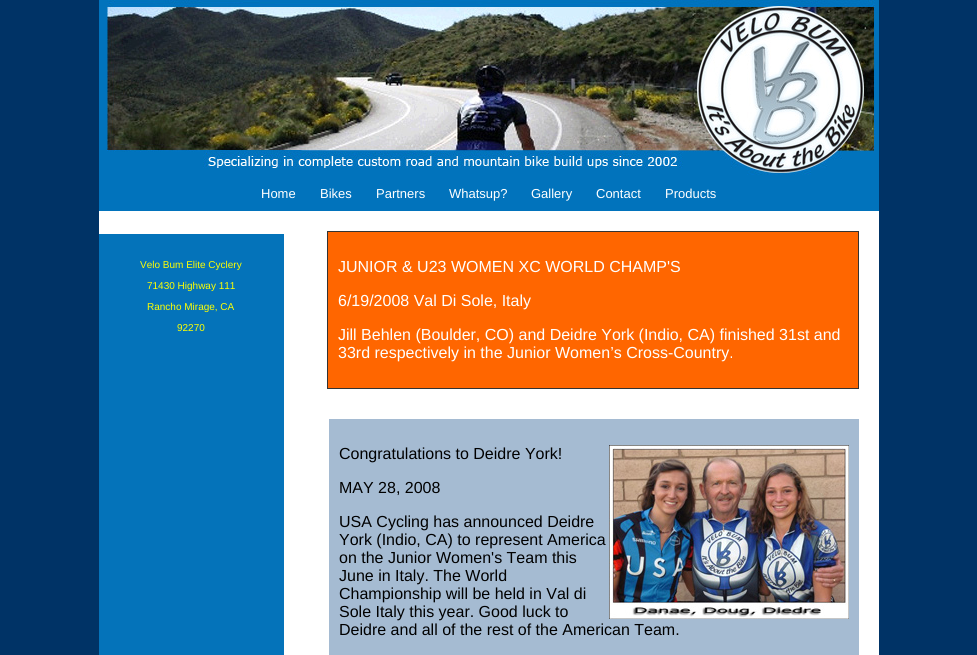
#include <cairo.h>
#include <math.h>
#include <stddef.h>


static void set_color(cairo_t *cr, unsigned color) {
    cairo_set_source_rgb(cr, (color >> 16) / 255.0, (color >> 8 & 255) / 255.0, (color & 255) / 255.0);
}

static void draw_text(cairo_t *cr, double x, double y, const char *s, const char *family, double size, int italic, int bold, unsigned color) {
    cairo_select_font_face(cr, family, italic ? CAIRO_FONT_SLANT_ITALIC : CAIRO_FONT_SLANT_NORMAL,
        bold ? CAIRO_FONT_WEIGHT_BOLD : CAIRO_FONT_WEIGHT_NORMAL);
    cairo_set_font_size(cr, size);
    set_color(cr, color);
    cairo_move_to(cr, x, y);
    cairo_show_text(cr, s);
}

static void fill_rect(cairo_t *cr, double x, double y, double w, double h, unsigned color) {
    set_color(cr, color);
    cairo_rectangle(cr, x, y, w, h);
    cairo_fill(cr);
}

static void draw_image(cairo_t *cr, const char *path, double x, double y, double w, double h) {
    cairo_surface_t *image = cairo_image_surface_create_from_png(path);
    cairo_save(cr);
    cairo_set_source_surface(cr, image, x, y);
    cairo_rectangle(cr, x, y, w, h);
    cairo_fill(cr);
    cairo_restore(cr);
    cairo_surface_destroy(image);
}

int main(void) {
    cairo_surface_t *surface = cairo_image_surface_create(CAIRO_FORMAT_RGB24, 977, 655);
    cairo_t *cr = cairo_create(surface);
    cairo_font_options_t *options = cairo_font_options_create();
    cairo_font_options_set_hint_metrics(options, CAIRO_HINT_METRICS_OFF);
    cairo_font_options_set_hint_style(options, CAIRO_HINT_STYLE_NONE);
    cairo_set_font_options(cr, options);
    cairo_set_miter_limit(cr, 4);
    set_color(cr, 0x003366);
    cairo_paint(cr);
    fill_rect(cr, 99, 211, 780, 444, 0xFFFFFF);
    draw_image(cr, "assets/img1.png", 99, 0, 780, 175);
    fill_rect(cr, 99, 175, 780, 36, 0x0173BC);
    draw_text(cr, 261, 198, "Home", "Liberation Sans", 13, 0, 0, 0xFFFFFF);
    draw_text(cr, 320, 198, "Bikes", "Liberation Sans", 13, 0, 0, 0xFFFFFF);
    draw_text(cr, 376, 198, "Partners", "Liberation Sans", 13, 0, 0, 0xFFFFFF);
    draw_text(cr, 449, 198, "Whatsup?", "Liberation Sans", 13, 0, 0, 0xFFFFFF);
    draw_text(cr, 531, 198, "Gallery", "Liberation Sans", 13, 0, 0, 0xFFFFFF);
    draw_text(cr, 596, 198, "Contact", "Liberation Sans", 13, 0, 0, 0xFFFFFF);
    draw_text(cr, 665, 198, "Products", "Liberation Sans", 13, 0, 0, 0xFFFFFF);
    fill_rect(cr, 99, 234, 185, 421, 0x0473BA);
    draw_text(cr, 140, 268, "Velo Bum Elite Cyclery", "Liberation Sans", 10, 0, 0, 0xFFFF00);
    draw_text(cr, 147, 289, "71430 Highway 111", "Liberation Sans", 10, 0, 0, 0xFFFF00);
    draw_text(cr, 147, 310, "Rancho Mirage, CA", "Liberation Sans", 10, 0, 0, 0xFFFF00);
    draw_text(cr, 177, 331, "92270", "Liberation Sans", 10, 0, 0, 0xFFFF00);
    set_color(cr, 0xFF6600);
    cairo_rectangle(cr, 327.5, 231.5, 531, 157);
    cairo_fill_preserve(cr);
    set_color(cr, 0x333333);
    cairo_set_line_width(cr, 1);
    cairo_stroke(cr);
    draw_text(cr, 338, 272, "JUNIOR & U23 WOMEN XC WORLD CHAMP'S", "Liberation Sans", 16, 0, 0, 0xFFFFFF);
    draw_text(cr, 338, 306, "6/19/2008 Val Di Sole, Italy", "Liberation Sans", 16, 0, 0, 0xFFFFFF);
    draw_text(cr, 338, 340, "Jill Behlen (Boulder, CO) and Deidre York (Indio, CA) finished 31st and", "Liberation Sans", 16, 0, 0, 0xFFFFFF);
    draw_text(cr, 338, 358, "33rd respectively in the Junior Women’s Cross-Country.", "Liberation Sans", 16, 0, 0, 0xFFFFFF);
    fill_rect(cr, 329, 419, 530, 236, 0xA5BBD2);
    draw_text(cr, 339, 459, "Congratulations to Deidre York!", "Liberation Sans", 16, 0, 0, 0x000000);
    draw_image(cr, "assets/img2.png", 609, 445, 240, 174);
    draw_text(cr, 339, 493, "MAY 28, 2008", "Liberation Sans", 16, 0, 0, 0x000000);
    draw_text(cr, 339, 527, "USA Cycling has announced Deidre", "Liberation Sans", 16, 0, 0, 0x000000);
    draw_text(cr, 339, 545, "York (Indio, CA) to represent America", "Liberation Sans", 16, 0, 0, 0x000000);
    draw_text(cr, 339, 563, "on the Junior Women's Team this", "Liberation Sans", 16, 0, 0, 0x000000);
    draw_text(cr, 339, 581, "June in Italy. The World", "Liberation Sans", 16, 0, 0, 0x000000);
    draw_text(cr, 339, 599, "Championship will be held in Val di", "Liberation Sans", 16, 0, 0, 0x000000);
    draw_text(cr, 339, 617, "Sole Italy this year. Good luck to", "Liberation Sans", 16, 0, 0, 0x000000);
    draw_text(cr, 339, 635, "Deidre and all of the rest of the American Team.", "Liberation Sans", 16, 0, 0, 0x000000);
    cairo_surface_write_to_png(surface, "output.png");
    cairo_font_options_destroy(options);
    cairo_destroy(cr);
    cairo_surface_destroy(surface);
    return 0;
}
